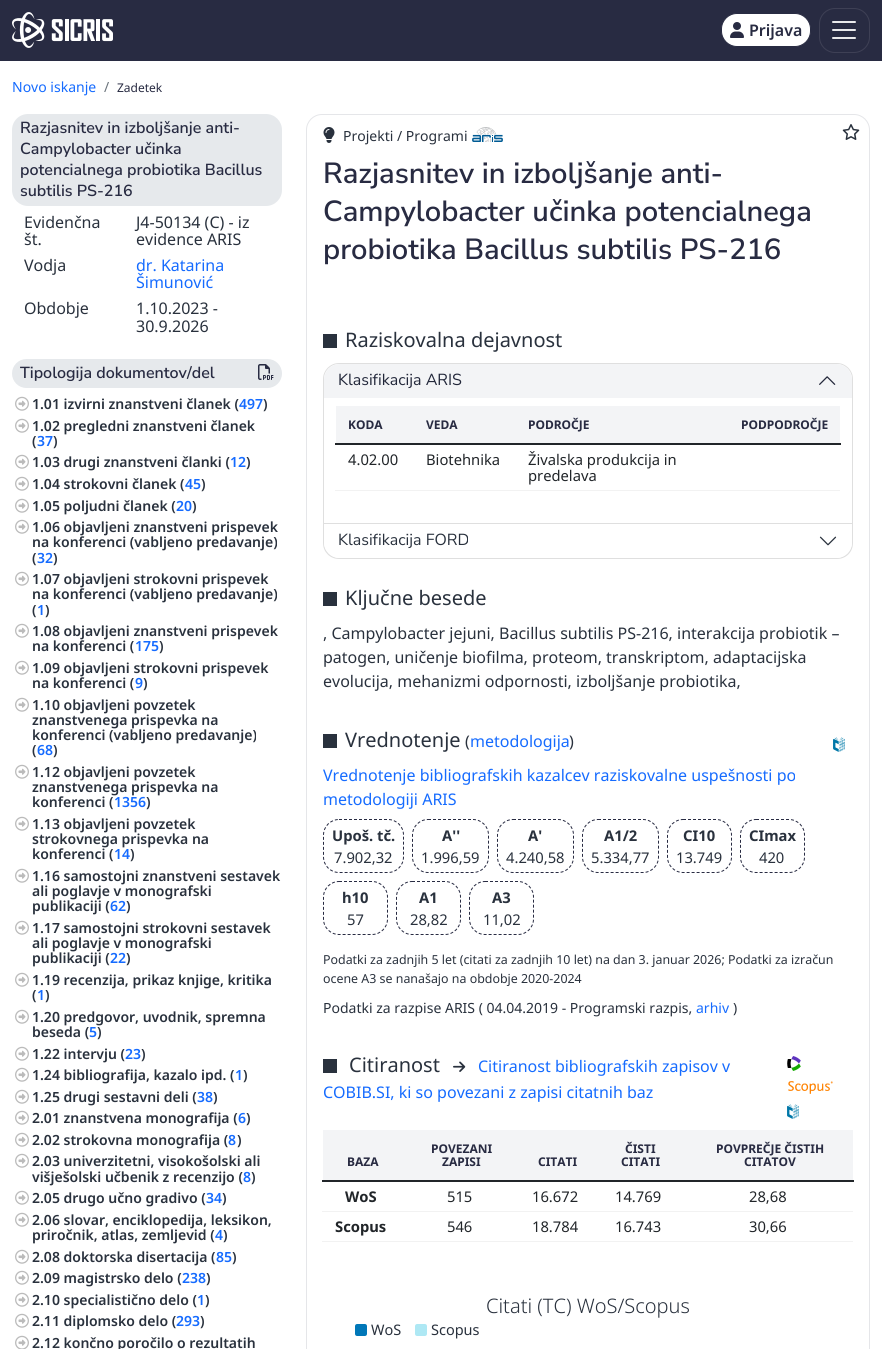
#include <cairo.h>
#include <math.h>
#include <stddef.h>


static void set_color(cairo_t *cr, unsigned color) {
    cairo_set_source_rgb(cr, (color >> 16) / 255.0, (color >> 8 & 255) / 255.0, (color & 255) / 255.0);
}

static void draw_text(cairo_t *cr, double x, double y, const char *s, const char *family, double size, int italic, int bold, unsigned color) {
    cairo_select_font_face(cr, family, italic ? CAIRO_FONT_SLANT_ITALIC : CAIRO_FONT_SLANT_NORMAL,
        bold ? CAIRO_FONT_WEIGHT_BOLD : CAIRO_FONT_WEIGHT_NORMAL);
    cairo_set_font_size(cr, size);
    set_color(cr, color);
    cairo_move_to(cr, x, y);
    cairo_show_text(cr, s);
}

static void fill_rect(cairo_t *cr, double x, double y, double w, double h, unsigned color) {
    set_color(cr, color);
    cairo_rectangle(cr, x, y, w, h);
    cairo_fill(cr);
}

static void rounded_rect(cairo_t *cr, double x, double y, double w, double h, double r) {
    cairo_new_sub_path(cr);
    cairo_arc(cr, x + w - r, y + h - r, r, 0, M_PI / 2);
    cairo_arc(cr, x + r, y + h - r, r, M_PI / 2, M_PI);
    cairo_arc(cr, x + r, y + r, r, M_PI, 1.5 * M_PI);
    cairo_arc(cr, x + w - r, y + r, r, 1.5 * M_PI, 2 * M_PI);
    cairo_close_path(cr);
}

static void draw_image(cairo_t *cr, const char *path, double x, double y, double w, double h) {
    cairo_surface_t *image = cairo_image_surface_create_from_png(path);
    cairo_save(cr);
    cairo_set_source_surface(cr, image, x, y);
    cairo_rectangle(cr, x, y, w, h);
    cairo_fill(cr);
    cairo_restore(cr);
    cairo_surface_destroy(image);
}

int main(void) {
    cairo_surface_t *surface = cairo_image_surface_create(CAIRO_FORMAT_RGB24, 882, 1349);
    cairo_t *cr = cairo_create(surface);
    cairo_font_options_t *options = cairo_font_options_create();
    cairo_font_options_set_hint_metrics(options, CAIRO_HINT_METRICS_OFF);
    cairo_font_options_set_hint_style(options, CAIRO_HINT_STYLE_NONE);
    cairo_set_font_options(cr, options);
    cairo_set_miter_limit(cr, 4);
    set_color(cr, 0xFFFFFF);
    cairo_paint(cr);
    fill_rect(cr, 0, 0, 882, 61, 0x282B42);
    draw_image(cr, "assets/img1.png", 12, 12, 101, 36);
    set_color(cr, 0xFFFFFF);
    rounded_rect(cr, 721.5, 13.5, 89, 33, 15.5);
    cairo_fill_preserve(cr);
    set_color(cr, 0x282B42);
    cairo_set_line_width(cr, 1);
    cairo_stroke(cr);
    draw_image(cr, "assets/img2.png", 730, 22, 14, 16);
    draw_text(cr, 749, 36, "Prijava", "Noto Sans SemiBold", 16, 0, 0, 0x282B42);
    rounded_rect(cr, 819.5, 8.5, 50, 44, 15.5);
    set_color(cr, 0x3E4055);
    cairo_stroke(cr);
    draw_image(cr, "assets/img3.png", 832, 21, 24, 18);
    draw_text(cr, 12, 92, "Novo iskanje", "Noto Sans", 14, 0, 0, 0x156BFF);
    draw_text(cr, 104, 92, "/", "Noto Sans", 14, 0, 0, 0x6C757D);
    draw_text(cr, 117, 92, "Zadetek", "Noto Sans", 12, 0, 0, 0x282B42);
    set_color(cr, 0xE6E9EC);
    rounded_rect(cr, 12, 114, 270, 92, 16);
    cairo_fill(cr);
    draw_text(cr, 20, 133, "Razjasnitev in izboljšanje anti-", "Nunito Sans SemiBold", 16, 0, 0, 0x282B42);
    draw_text(cr, 20, 154, "Campylobacter učinka", "Nunito Sans SemiBold", 16, 0, 0, 0x282B42);
    draw_text(cr, 20, 175, "potencialnega probiotika Bacillus", "Nunito Sans SemiBold", 16, 0, 0, 0x282B42);
    draw_text(cr, 20, 196, "subtilis PS-216", "Nunito Sans SemiBold", 16, 0, 0, 0x282B42);
    draw_text(cr, 24, 228, "Evidenčna", "Noto Sans", 16, 0, 0, 0x29313D);
    draw_text(cr, 24, 245, "št.", "Noto Sans", 16, 0, 0, 0x29313D);
    draw_text(cr, 136, 228, "J4-50134 (C) - iz", "Noto Sans", 16, 0, 0, 0x29313D);
    draw_text(cr, 136, 245, "evidence ARIS", "Noto Sans", 16, 0, 0, 0x29313D);
    draw_text(cr, 24, 271, "Vodja", "Noto Sans", 16, 0, 0, 0x29313D);
    draw_text(cr, 136, 271, "dr. Katarina", "Noto Sans", 16, 0, 0, 0x156BFF);
    draw_text(cr, 136, 288, "Šimunović", "Noto Sans", 16, 0, 0, 0x156BFF);
    draw_text(cr, 24, 314, "Obdobje", "Noto Sans", 16, 0, 0, 0x29313D);
    draw_text(cr, 136, 314, "1.10.2023 -", "Noto Sans", 16, 0, 0, 0x29313D);
    draw_text(cr, 136, 332, "30.9.2026", "Noto Sans", 16, 0, 0, 0x29313D);
    set_color(cr, 0xE6E9EC);
    rounded_rect(cr, 12, 359, 270, 29, 14.5);
    cairo_fill(cr);
    draw_text(cr, 20, 378, "Tipologija dokumentov/del", "Nunito Sans SemiBold", 16, 0, 0, 0x282B42);
    draw_image(cr, "assets/img4.png", 258, 364, 16, 16);
    draw_image(cr, "assets/img5.png", 15, 396, 14, 15);
    draw_text(cr, 32, 409, "1.01 izvirni znanstveni članek (", "Noto Sans SemiBold", 14, 0, 0, 0x29313D);
    draw_text(cr, 239, 409, "497", "Noto Sans SemiBold", 14, 0, 0, 0x156BFF);
    draw_text(cr, 263, 409, ")", "Noto Sans SemiBold", 14, 0, 0, 0x29313D);
    draw_image(cr, "assets/img5.png", 15, 418, 14, 15);
    draw_text(cr, 32, 431, "1.02 pregledni znanstveni članek", "Noto Sans SemiBold", 14, 0, 0, 0x29313D);
    draw_text(cr, 32, 446, "(", "Noto Sans SemiBold", 14, 0, 0, 0x29313D);
    draw_text(cr, 37, 446, "37", "Noto Sans SemiBold", 14, 0, 0, 0x156BFF);
    draw_text(cr, 53, 446, ")", "Noto Sans SemiBold", 14, 0, 0, 0x29313D);
    draw_image(cr, "assets/img5.png", 15, 454, 14, 15);
    draw_text(cr, 32, 467, "1.03 drugi znanstveni članki (", "Noto Sans SemiBold", 14, 0, 0, 0x29313D);
    draw_text(cr, 230, 467, "12", "Noto Sans SemiBold", 14, 0, 0, 0x156BFF);
    draw_text(cr, 246, 467, ")", "Noto Sans SemiBold", 14, 0, 0, 0x29313D);
    draw_image(cr, "assets/img5.png", 15, 476, 14, 15);
    draw_text(cr, 32, 489, "1.04 strokovni članek (", "Noto Sans SemiBold", 14, 0, 0, 0x29313D);
    draw_text(cr, 185, 489, "45", "Noto Sans SemiBold", 14, 0, 0, 0x156BFF);
    draw_text(cr, 201, 489, ")", "Noto Sans SemiBold", 14, 0, 0, 0x29313D);
    draw_image(cr, "assets/img5.png", 15, 498, 14, 15);
    draw_text(cr, 32, 511, "1.05 poljudni članek (", "Noto Sans SemiBold", 14, 0, 0, 0x29313D);
    draw_text(cr, 176, 511, "20", "Noto Sans SemiBold", 14, 0, 0, 0x156BFF);
    draw_text(cr, 192, 511, ")", "Noto Sans SemiBold", 14, 0, 0, 0x29313D);
    draw_image(cr, "assets/img5.png", 15, 519, 14, 15);
    draw_text(cr, 32, 532, "1.06 objavljeni znanstveni prispevek", "Noto Sans SemiBold", 14, 0, 0, 0x29313D);
    draw_text(cr, 32, 547, "na konferenci (vabljeno predavanje)", "Noto Sans SemiBold", 14, 0, 0, 0x29313D);
    draw_text(cr, 32, 563, "(", "Noto Sans SemiBold", 14, 0, 0, 0x29313D);
    draw_text(cr, 37, 563, "32", "Noto Sans SemiBold", 14, 0, 0, 0x156BFF);
    draw_text(cr, 53, 563, ")", "Noto Sans SemiBold", 14, 0, 0, 0x29313D);
    draw_image(cr, "assets/img5.png", 15, 571, 14, 15);
    draw_text(cr, 32, 584, "1.07 objavljeni strokovni prispevek", "Noto Sans SemiBold", 14, 0, 0, 0x29313D);
    draw_text(cr, 32, 599, "na konferenci (vabljeno predavanje)", "Noto Sans SemiBold", 14, 0, 0, 0x29313D);
    draw_text(cr, 32, 615, "(", "Noto Sans SemiBold", 14, 0, 0, 0x29313D);
    draw_text(cr, 37, 615, "1", "Noto Sans SemiBold", 14, 0, 0, 0x156BFF);
    draw_text(cr, 45, 615, ")", "Noto Sans SemiBold", 14, 0, 0, 0x29313D);
    draw_image(cr, "assets/img5.png", 15, 623, 14, 15);
    draw_text(cr, 32, 636, "1.08 objavljeni znanstveni prispevek", "Noto Sans SemiBold", 14, 0, 0, 0x29313D);
    draw_text(cr, 32, 651, "na konferenci (", "Noto Sans SemiBold", 14, 0, 0, 0x29313D);
    draw_text(cr, 135, 651, "175", "Noto Sans SemiBold", 14, 0, 0, 0x156BFF);
    draw_text(cr, 159, 651, ")", "Noto Sans SemiBold", 14, 0, 0, 0x29313D);
    draw_image(cr, "assets/img5.png", 15, 660, 14, 15);
    draw_text(cr, 32, 673, "1.09 objavljeni strokovni prispevek", "Noto Sans SemiBold", 14, 0, 0, 0x29313D);
    draw_text(cr, 32, 688, "na konferenci (", "Noto Sans SemiBold", 14, 0, 0, 0x29313D);
    draw_text(cr, 135, 688, "9", "Noto Sans SemiBold", 14, 0, 0, 0x156BFF);
    draw_text(cr, 143, 688, ")", "Noto Sans SemiBold", 14, 0, 0, 0x29313D);
    draw_image(cr, "assets/img5.png", 15, 697, 14, 15);
    draw_text(cr, 32, 710, "1.10 objavljeni povzetek", "Noto Sans SemiBold", 14, 0, 0, 0x29313D);
    draw_text(cr, 32, 725, "znanstvenega prispevka na", "Noto Sans SemiBold", 14, 0, 0, 0x29313D);
    draw_text(cr, 32, 740, "konferenci (vabljeno predavanje)", "Noto Sans SemiBold", 14, 0, 0, 0x29313D);
    draw_text(cr, 32, 755, "(", "Noto Sans SemiBold", 14, 0, 0, 0x29313D);
    draw_text(cr, 37, 755, "68", "Noto Sans SemiBold", 14, 0, 0, 0x156BFF);
    draw_text(cr, 53, 755, ")", "Noto Sans SemiBold", 14, 0, 0, 0x29313D);
    draw_image(cr, "assets/img5.png", 15, 764, 14, 15);
    draw_text(cr, 32, 777, "1.12 objavljeni povzetek", "Noto Sans SemiBold", 14, 0, 0, 0x29313D);
    draw_text(cr, 32, 792, "znanstvenega prispevka na", "Noto Sans SemiBold", 14, 0, 0, 0x29313D);
    draw_text(cr, 32, 807, "konferenci (", "Noto Sans SemiBold", 14, 0, 0, 0x29313D);
    draw_text(cr, 114, 807, "1356", "Noto Sans SemiBold", 14, 0, 0, 0x156BFF);
    draw_text(cr, 146, 807, ")", "Noto Sans SemiBold", 14, 0, 0, 0x29313D);
    draw_image(cr, "assets/img5.png", 15, 816, 14, 15);
    draw_text(cr, 32, 829, "1.13 objavljeni povzetek", "Noto Sans SemiBold", 14, 0, 0, 0x29313D);
    draw_text(cr, 32, 844, "strokovnega prispevka na", "Noto Sans SemiBold", 14, 0, 0, 0x29313D);
    draw_text(cr, 32, 859, "konferenci (", "Noto Sans SemiBold", 14, 0, 0, 0x29313D);
    draw_text(cr, 114, 859, "14", "Noto Sans SemiBold", 14, 0, 0, 0x156BFF);
    draw_text(cr, 130, 859, ")", "Noto Sans SemiBold", 14, 0, 0, 0x29313D);
    draw_image(cr, "assets/img5.png", 15, 868, 14, 15);
    draw_text(cr, 32, 881, "1.16 samostojni znanstveni sestavek", "Noto Sans SemiBold", 14, 0, 0, 0x29313D);
    draw_text(cr, 32, 896, "ali poglavje v monografski", "Noto Sans SemiBold", 14, 0, 0, 0x29313D);
    draw_text(cr, 32, 911, "publikaciji (", "Noto Sans SemiBold", 14, 0, 0, 0x29313D);
    draw_text(cr, 110, 911, "62", "Noto Sans SemiBold", 14, 0, 0, 0x156BFF);
    draw_text(cr, 126, 911, ")", "Noto Sans SemiBold", 14, 0, 0, 0x29313D);
    draw_image(cr, "assets/img5.png", 15, 920, 14, 15);
    draw_text(cr, 32, 933, "1.17 samostojni strokovni sestavek", "Noto Sans SemiBold", 14, 0, 0, 0x29313D);
    draw_text(cr, 32, 948, "ali poglavje v monografski", "Noto Sans SemiBold", 14, 0, 0, 0x29313D);
    draw_text(cr, 32, 963, "publikaciji (", "Noto Sans SemiBold", 14, 0, 0, 0x29313D);
    draw_text(cr, 110, 963, "22", "Noto Sans SemiBold", 14, 0, 0, 0x156BFF);
    draw_text(cr, 126, 963, ")", "Noto Sans SemiBold", 14, 0, 0, 0x29313D);
    draw_image(cr, "assets/img5.png", 15, 972, 14, 15);
    draw_text(cr, 32, 985, "1.19 recenzija, prikaz knjige, kritika", "Noto Sans SemiBold", 14, 0, 0, 0x29313D);
    draw_text(cr, 32, 1000, "(", "Noto Sans SemiBold", 14, 0, 0, 0x29313D);
    draw_text(cr, 37, 1000, "1", "Noto Sans SemiBold", 14, 0, 0, 0x156BFF);
    draw_text(cr, 45, 1000, ")", "Noto Sans SemiBold", 14, 0, 0, 0x29313D);
    draw_image(cr, "assets/img5.png", 15, 1009, 14, 15);
    draw_text(cr, 32, 1022, "1.20 predgovor, uvodnik, spremna", "Noto Sans SemiBold", 14, 0, 0, 0x29313D);
    draw_text(cr, 32, 1037, "beseda (", "Noto Sans SemiBold", 14, 0, 0, 0x29313D);
    draw_text(cr, 89, 1037, "5", "Noto Sans SemiBold", 14, 0, 0, 0x156BFF);
    draw_text(cr, 97, 1037, ")", "Noto Sans SemiBold", 14, 0, 0, 0x29313D);
    draw_image(cr, "assets/img5.png", 15, 1046, 14, 15);
    draw_text(cr, 32, 1059, "1.22 intervju (", "Noto Sans SemiBold", 14, 0, 0, 0x29313D);
    draw_text(cr, 125, 1059, "23", "Noto Sans SemiBold", 14, 0, 0, 0x156BFF);
    draw_text(cr, 141, 1059, ")", "Noto Sans SemiBold", 14, 0, 0, 0x29313D);
    draw_image(cr, "assets/img5.png", 15, 1067, 14, 15);
    draw_text(cr, 32, 1080, "1.24 bibliografija, kazalo ipd. (", "Noto Sans SemiBold", 14, 0, 0, 0x29313D);
    draw_text(cr, 235, 1080, "1", "Noto Sans SemiBold", 14, 0, 0, 0x156BFF);
    draw_text(cr, 243, 1080, ")", "Noto Sans SemiBold", 14, 0, 0, 0x29313D);
    draw_image(cr, "assets/img5.png", 15, 1089, 14, 15);
    draw_text(cr, 32, 1102, "1.25 drugi sestavni deli (", "Noto Sans SemiBold", 14, 0, 0, 0x29313D);
    draw_text(cr, 197, 1102, "38", "Noto Sans SemiBold", 14, 0, 0, 0x156BFF);
    draw_text(cr, 213, 1102, ")", "Noto Sans SemiBold", 14, 0, 0, 0x29313D);
    draw_image(cr, "assets/img5.png", 15, 1110, 14, 15);
    draw_text(cr, 32, 1123, "2.01 znanstvena monografija (", "Noto Sans SemiBold", 14, 0, 0, 0x29313D);
    draw_text(cr, 238, 1123, "6", "Noto Sans SemiBold", 14, 0, 0, 0x156BFF);
    draw_text(cr, 246, 1123, ")", "Noto Sans SemiBold", 14, 0, 0, 0x29313D);
    draw_image(cr, "assets/img5.png", 15, 1132, 14, 15);
    draw_text(cr, 32, 1145, "2.02 strokovna monografija (", "Noto Sans SemiBold", 14, 0, 0, 0x29313D);
    draw_text(cr, 228, 1145, "8", "Noto Sans SemiBold", 14, 0, 0, 0x156BFF);
    draw_text(cr, 237, 1145, ")", "Noto Sans SemiBold", 14, 0, 0, 0x29313D);
    draw_image(cr, "assets/img5.png", 15, 1153, 14, 15);
    draw_text(cr, 32, 1166, "2.03 univerzitetni, visokošolski ali", "Noto Sans SemiBold", 14, 0, 0, 0x29313D);
    draw_text(cr, 32, 1182, "višješolski učbenik z recenzijo (", "Noto Sans SemiBold", 14, 0, 0, 0x29313D);
    draw_text(cr, 243, 1182, "8", "Noto Sans SemiBold", 14, 0, 0, 0x156BFF);
    draw_text(cr, 251, 1182, ")", "Noto Sans SemiBold", 14, 0, 0, 0x29313D);
    draw_image(cr, "assets/img5.png", 15, 1190, 14, 15);
    draw_text(cr, 32, 1203, "2.05 drugo učno gradivo (", "Noto Sans SemiBold", 14, 0, 0, 0x29313D);
    draw_text(cr, 206, 1203, "34", "Noto Sans SemiBold", 14, 0, 0, 0x156BFF);
    draw_text(cr, 222, 1203, ")", "Noto Sans SemiBold", 14, 0, 0, 0x29313D);
    draw_image(cr, "assets/img5.png", 15, 1212, 14, 15);
    draw_text(cr, 32, 1225, "2.06 slovar, enciklopedija, leksikon,", "Noto Sans SemiBold", 14, 0, 0, 0x29313D);
    draw_text(cr, 32, 1240, "priročnik, atlas, zemljevid (", "Noto Sans SemiBold", 14, 0, 0, 0x29313D);
    draw_text(cr, 215, 1240, "4", "Noto Sans SemiBold", 14, 0, 0, 0x156BFF);
    draw_text(cr, 223, 1240, ")", "Noto Sans SemiBold", 14, 0, 0, 0x29313D);
    draw_image(cr, "assets/img5.png", 15, 1249, 14, 15);
    draw_text(cr, 32, 1262, "2.08 doktorska disertacija (", "Noto Sans SemiBold", 14, 0, 0, 0x29313D);
    draw_text(cr, 216, 1262, "85", "Noto Sans SemiBold", 14, 0, 0, 0x156BFF);
    draw_text(cr, 232, 1262, ")", "Noto Sans SemiBold", 14, 0, 0, 0x29313D);
    draw_image(cr, "assets/img5.png", 15, 1270, 14, 15);
    draw_text(cr, 32, 1283, "2.09 magistrsko delo (", "Noto Sans SemiBold", 14, 0, 0, 0x29313D);
    draw_text(cr, 182, 1283, "238", "Noto Sans SemiBold", 14, 0, 0, 0x156BFF);
    draw_text(cr, 206, 1283, ")", "Noto Sans SemiBold", 14, 0, 0, 0x29313D);
    draw_image(cr, "assets/img5.png", 15, 1292, 14, 15);
    draw_text(cr, 32, 1305, "2.10 specialistično delo (", "Noto Sans SemiBold", 14, 0, 0, 0x29313D);
    draw_text(cr, 197, 1305, "1", "Noto Sans SemiBold", 14, 0, 0, 0x156BFF);
    draw_text(cr, 205, 1305, ")", "Noto Sans SemiBold", 14, 0, 0, 0x29313D);
    draw_image(cr, "assets/img5.png", 15, 1313, 14, 15);
    draw_text(cr, 32, 1326, "2.11 diplomsko delo (", "Noto Sans SemiBold", 14, 0, 0, 0x29313D);
    draw_text(cr, 176, 1326, "293", "Noto Sans SemiBold", 14, 0, 0, 0x156BFF);
    draw_text(cr, 200, 1326, ")", "Noto Sans SemiBold", 14, 0, 0, 0x29313D);
    draw_image(cr, "assets/img6.png", 15, 1335, 14, 14);
    draw_text(cr, 32, 1348, "2.12 končno poročilo o rezultatih", "Noto Sans SemiBold", 14, 0, 0, 0x29313D);
    rounded_rect(cr, 306.5, 114.5, 563, 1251, 15.5);
    set_color(cr, 0xE5E6E9);
    cairo_stroke(cr);
    draw_image(cr, "assets/img7.png", 323, 127, 12, 16);
    draw_text(cr, 343, 141, "Projekti / Programi", "Noto Sans", 14, 0, 0, 0x29313D);
    draw_image(cr, "assets/img8.png", 472, 127, 31, 15);
    draw_text(cr, 323, 183, "Razjasnitev in izboljšanje anti-", "Nunito Sans SemiBold", 29.1, 0, 0, 0x282B42);
    draw_text(cr, 323, 221, "Campylobacter učinka potencialnega", "Nunito Sans SemiBold", 29.1, 0, 0, 0x282B42);
    draw_text(cr, 323, 259, "probiotika Bacillus subtilis PS-216", "Nunito Sans SemiBold", 29.1, 0, 0, 0x282B42);
    fill_rect(cr, 323, 334, 14, 14, 0x29313D);
    draw_text(cr, 345, 347, "Raziskovalna dejavnost", "Noto Sans", 20, 0, 0, 0x29313D);
    cairo_new_path(cr);
    cairo_move_to(cr, 339, 363.5);
    cairo_line_to(cr, 837, 363.5);
    cairo_curve_to(cr, 845.5, 363.5, 852.5, 370.5, 852.5, 379);
    cairo_line_to(cr, 852.5, 523.5);
    cairo_line_to(cr, 323.5, 523.5);
    cairo_line_to(cr, 323.5, 379);
    cairo_curve_to(cr, 323.5, 370.5, 330.5, 363.5, 339, 363.5);
    cairo_close_path(cr);
    set_color(cr, 0xDFDFDF);
    cairo_stroke(cr);
    set_color(cr, 0xF3F4F6);
    cairo_new_path(cr);
    cairo_move_to(cr, 340, 364);
    cairo_line_to(cr, 836, 364);
    cairo_curve_to(cr, 845, 364, 852, 371, 852, 380);
    cairo_line_to(cr, 852, 398);
    cairo_line_to(cr, 324, 398);
    cairo_line_to(cr, 324, 380);
    cairo_curve_to(cr, 324, 371, 331, 364, 340, 364);
    cairo_close_path(cr);
    cairo_fill(cr);
    draw_text(cr, 338, 385, "Klasifikacija ARIS", "Nunito Sans", 16, 0, 0, 0x22273A);
    draw_image(cr, "assets/img9.png", 819, 376, 17, 9);
    fill_rect(cr, 336, 406, 504, 37, 0xF3F4F6);
    draw_text(cr, 348, 429, "KODA", "Noto Sans", 12, 0, 1, 0x282B42);
    draw_text(cr, 426, 429, "VEDA", "Noto Sans", 12, 0, 1, 0x282B42);
    draw_text(cr, 528, 429, "PODROČJE", "Noto Sans", 12, 0, 1, 0x282B42);
    draw_text(cr, 741, 429, "PODPODROČJE", "Noto Sans", 12, 0, 1, 0x282B42);
    fill_rect(cr, 335, 443, 506, 2, 0x212529);
    draw_text(cr, 348, 465, "4.02.00", "Noto Sans", 14.75, 0, 0, 0x212529);
    draw_text(cr, 426, 465, "Biotehnika", "Noto Sans", 14.75, 0, 0, 0x212529);
    draw_text(cr, 528, 465, "Živalska produkcija in", "Noto Sans", 14.75, 0, 0, 0x212529);
    draw_text(cr, 528, 481, "predelava", "Noto Sans", 14.75, 0, 0, 0x212529);
    fill_rect(cr, 335, 490, 505, 1, 0xF2F2F2);
    set_color(cr, 0xDFDFDF);
    cairo_set_fill_rule(cr, CAIRO_FILL_RULE_EVEN_ODD);
    cairo_new_path(cr);
    cairo_move_to(cr, 323, 524);
    cairo_line_to(cr, 853, 524);
    cairo_line_to(cr, 853, 543);
    cairo_curve_to(cr, 853, 552, 846, 559, 837, 559);
    cairo_line_to(cr, 339, 559);
    cairo_curve_to(cr, 330, 559, 323, 552, 323, 543);
    cairo_close_path(cr);
    cairo_move_to(cr, 324, 524);
    cairo_line_to(cr, 852, 524);
    cairo_line_to(cr, 852, 543);
    cairo_curve_to(cr, 852, 551, 845, 558, 837, 558);
    cairo_line_to(cr, 339, 558);
    cairo_curve_to(cr, 331, 558, 324, 551, 324, 543);
    cairo_close_path(cr);
    cairo_fill(cr);
    set_color(cr, 0xFFFFFF);
    cairo_new_path(cr);
    cairo_move_to(cr, 324, 524);
    cairo_line_to(cr, 852, 524);
    cairo_line_to(cr, 852, 542);
    cairo_curve_to(cr, 852, 551, 845, 558, 836, 558);
    cairo_line_to(cr, 340, 558);
    cairo_curve_to(cr, 331, 558, 324, 551, 324, 542);
    cairo_close_path(cr);
    cairo_fill(cr);
    draw_text(cr, 338, 545, "Klasifikacija FORD", "Nunito Sans", 16, 0, 0, 0x29313D);
    draw_image(cr, "assets/img10.png", 819, 536, 18, 10);
    fill_rect(cr, 323, 592, 14, 14, 0x29313D);
    draw_text(cr, 345, 605, "Ključne besede", "Noto Sans", 20, 0, 0, 0x29313D);
    draw_text(cr, 323, 639, ", Campylobacter jejuni, Bacillus subtilis PS-216, interakcija probiotik –", "Noto Sans", 16, 0, 0, 0x29313D);
    draw_text(cr, 323, 663, "patogen, uničenje biofilma, proteom, transkriptom, adaptacijska", "Noto Sans", 16, 0, 0, 0x29313D);
    draw_text(cr, 323, 687, "evolucija, mehanizmi odpornosti, izboljšanje probiotika,", "Noto Sans", 16, 0, 0, 0x29313D);
    fill_rect(cr, 323, 734, 14, 14, 0x29313D);
    draw_text(cr, 345, 747, "Vrednotenje", "Noto Sans", 20, 0, 0, 0x29313D);
    draw_text(cr, 465, 747, "(", "Noto Sans", 16, 0, 0, 0x29313D);
    draw_text(cr, 470, 747, "metodologija", "Noto Sans", 16, 0, 0, 0x156BFF);
    draw_text(cr, 569, 747, ")", "Noto Sans", 16, 0, 0, 0x29313D);
    draw_image(cr, "assets/img11.png", 833, 737, 12, 15);
    draw_text(cr, 323, 781, "Vrednotenje bibliografskih kazalcev raziskovalne uspešnosti po", "Noto Sans", 16, 0, 0, 0x156BFF);
    draw_text(cr, 323, 805, "metodologiji ARIS", "Noto Sans", 16, 0, 0, 0x156BFF);
    cairo_new_path(cr);
    cairo_move_to(cr, 339, 819.5);
    cairo_line_to(cr, 388, 819.5);
    cairo_curve_to(cr, 396.5, 819.5, 403.5, 826.5, 403.5, 835);
    cairo_line_to(cr, 403.5, 857);
    cairo_curve_to(cr, 403.5, 865.5, 396.5, 872.5, 388, 872.5);
    cairo_line_to(cr, 339, 872.5);
    cairo_curve_to(cr, 330.5, 872.5, 323.5, 865.5, 323.5, 857);
    cairo_line_to(cr, 323.5, 835);
    cairo_curve_to(cr, 323.5, 826.5, 330.5, 819.5, 339, 819.5);
    cairo_close_path(cr);
    set_color(cr, 0x282B42);
    cairo_set_dash(cr, (double[]){3, 2}, 2, 0);
    cairo_stroke(cr);
    draw_text(cr, 332, 841, "Upoš. tč.", "Noto Sans", 14.75, 0, 1, 0x29313D);
    draw_text(cr, 334, 863, "7.902,32", "Noto Sans", 14.75, 0, 0, 0x29313D);
    cairo_new_path(cr);
    cairo_move_to(cr, 428, 819.5);
    cairo_line_to(cr, 473, 819.5);
    cairo_curve_to(cr, 481.5, 819.5, 488.5, 826.5, 488.5, 835);
    cairo_line_to(cr, 488.5, 857);
    cairo_curve_to(cr, 488.5, 865.5, 481.5, 872.5, 473, 872.5);
    cairo_line_to(cr, 428, 872.5);
    cairo_curve_to(cr, 419.5, 872.5, 412.5, 865.5, 412.5, 857);
    cairo_line_to(cr, 412.5, 835);
    cairo_curve_to(cr, 412.5, 826.5, 419.5, 819.5, 428, 819.5);
    cairo_close_path(cr);
    set_color(cr, 0x282B42);
    cairo_stroke(cr);
    draw_text(cr, 442, 841, "A''", "Noto Sans", 14.75, 0, 1, 0x29313D);
    draw_text(cr, 421, 863, "1.996,59", "Noto Sans", 14.75, 0, 0, 0x29313D);
    cairo_new_path(cr);
    cairo_move_to(cr, 513, 819.5);
    cairo_line_to(cr, 558, 819.5);
    cairo_curve_to(cr, 566.5, 819.5, 573.5, 826.5, 573.5, 835);
    cairo_line_to(cr, 573.5, 857);
    cairo_curve_to(cr, 573.5, 865.5, 566.5, 872.5, 558, 872.5);
    cairo_line_to(cr, 513, 872.5);
    cairo_curve_to(cr, 504.5, 872.5, 497.5, 865.5, 497.5, 857);
    cairo_line_to(cr, 497.5, 835);
    cairo_curve_to(cr, 497.5, 826.5, 504.5, 819.5, 513, 819.5);
    cairo_close_path(cr);
    set_color(cr, 0x282B42);
    cairo_stroke(cr);
    draw_text(cr, 528, 841, "A'", "Noto Sans", 14.75, 0, 1, 0x29313D);
    draw_text(cr, 506, 863, "4.240,58", "Noto Sans", 14.75, 0, 0, 0x29313D);
    cairo_new_path(cr);
    cairo_move_to(cr, 598, 819.5);
    cairo_line_to(cr, 643, 819.5);
    cairo_curve_to(cr, 651.5, 819.5, 658.5, 826.5, 658.5, 835);
    cairo_line_to(cr, 658.5, 857);
    cairo_curve_to(cr, 658.5, 865.5, 651.5, 872.5, 643, 872.5);
    cairo_line_to(cr, 598, 872.5);
    cairo_curve_to(cr, 589.5, 872.5, 582.5, 865.5, 582.5, 857);
    cairo_line_to(cr, 582.5, 835);
    cairo_curve_to(cr, 582.5, 826.5, 589.5, 819.5, 598, 819.5);
    cairo_close_path(cr);
    set_color(cr, 0x282B42);
    cairo_stroke(cr);
    draw_text(cr, 604, 841, "A1/2", "Noto Sans", 14.75, 0, 1, 0x29313D);
    draw_text(cr, 591, 863, "5.334,77", "Noto Sans", 14.75, 0, 0, 0x29313D);
    cairo_new_path(cr);
    cairo_move_to(cr, 683, 819.5);
    cairo_line_to(cr, 716, 819.5);
    cairo_curve_to(cr, 724.5, 819.5, 731.5, 826.5, 731.5, 835);
    cairo_line_to(cr, 731.5, 857);
    cairo_curve_to(cr, 731.5, 865.5, 724.5, 872.5, 716, 872.5);
    cairo_line_to(cr, 683, 872.5);
    cairo_curve_to(cr, 674.5, 872.5, 667.5, 865.5, 667.5, 857);
    cairo_line_to(cr, 667.5, 835);
    cairo_curve_to(cr, 667.5, 826.5, 674.5, 819.5, 683, 819.5);
    cairo_close_path(cr);
    set_color(cr, 0x282B42);
    cairo_stroke(cr);
    draw_text(cr, 683, 841, "CI10", "Noto Sans", 14.75, 0, 1, 0x29313D);
    draw_text(cr, 676, 863, "13.749", "Noto Sans", 14.75, 0, 0, 0x29313D);
    cairo_new_path(cr);
    cairo_move_to(cr, 756, 819.5);
    cairo_line_to(cr, 789, 819.5);
    cairo_curve_to(cr, 797.5, 819.5, 804.5, 826.5, 804.5, 835);
    cairo_line_to(cr, 804.5, 857);
    cairo_curve_to(cr, 804.5, 865.5, 797.5, 872.5, 789, 872.5);
    cairo_line_to(cr, 756, 872.5);
    cairo_curve_to(cr, 747.5, 872.5, 740.5, 865.5, 740.5, 857);
    cairo_line_to(cr, 740.5, 835);
    cairo_curve_to(cr, 740.5, 826.5, 747.5, 819.5, 756, 819.5);
    cairo_close_path(cr);
    set_color(cr, 0x282B42);
    cairo_stroke(cr);
    draw_text(cr, 749, 841, "CImax", "Noto Sans", 14.75, 0, 1, 0x29313D);
    draw_text(cr, 759, 863, "420", "Noto Sans", 14.75, 0, 0, 0x29313D);
    cairo_new_path(cr);
    cairo_move_to(cr, 339, 881.5);
    cairo_line_to(cr, 372, 881.5);
    cairo_curve_to(cr, 380.5, 881.5, 387.5, 888.5, 387.5, 897);
    cairo_line_to(cr, 387.5, 919);
    cairo_curve_to(cr, 387.5, 927.5, 380.5, 934.5, 372, 934.5);
    cairo_line_to(cr, 339, 934.5);
    cairo_curve_to(cr, 330.5, 934.5, 323.5, 927.5, 323.5, 919);
    cairo_line_to(cr, 323.5, 897);
    cairo_curve_to(cr, 323.5, 888.5, 330.5, 881.5, 339, 881.5);
    cairo_close_path(cr);
    set_color(cr, 0x282B42);
    cairo_stroke(cr);
    draw_text(cr, 342, 903, "h10", "Noto Sans", 14.75, 0, 1, 0x29313D);
    draw_text(cr, 347, 925, "57", "Noto Sans", 14.75, 0, 0, 0x29313D);
    cairo_new_path(cr);
    cairo_move_to(cr, 412, 881.5);
    cairo_line_to(cr, 445, 881.5);
    cairo_curve_to(cr, 453.5, 881.5, 460.5, 888.5, 460.5, 897);
    cairo_line_to(cr, 460.5, 919);
    cairo_curve_to(cr, 460.5, 927.5, 453.5, 934.5, 445, 934.5);
    cairo_line_to(cr, 412, 934.5);
    cairo_curve_to(cr, 403.5, 934.5, 396.5, 927.5, 396.5, 919);
    cairo_line_to(cr, 396.5, 897);
    cairo_curve_to(cr, 396.5, 888.5, 403.5, 881.5, 412, 881.5);
    cairo_close_path(cr);
    set_color(cr, 0x282B42);
    cairo_stroke(cr);
    draw_text(cr, 419, 903, "A1", "Noto Sans", 14.75, 0, 1, 0x29313D);
    draw_text(cr, 410, 925, "28,82", "Noto Sans", 14.75, 0, 0, 0x29313D);
    cairo_new_path(cr);
    cairo_move_to(cr, 485, 881.5);
    cairo_line_to(cr, 518, 881.5);
    cairo_curve_to(cr, 526.5, 881.5, 533.5, 888.5, 533.5, 897);
    cairo_line_to(cr, 533.5, 919);
    cairo_curve_to(cr, 533.5, 927.5, 526.5, 934.5, 518, 934.5);
    cairo_line_to(cr, 485, 934.5);
    cairo_curve_to(cr, 476.5, 934.5, 469.5, 927.5, 469.5, 919);
    cairo_line_to(cr, 469.5, 897);
    cairo_curve_to(cr, 469.5, 888.5, 476.5, 881.5, 485, 881.5);
    cairo_close_path(cr);
    set_color(cr, 0x282B42);
    cairo_stroke(cr);
    draw_text(cr, 492, 903, "A3", "Noto Sans", 14.75, 0, 1, 0x29313D);
    draw_text(cr, 483, 925, "11,02", "Noto Sans", 14.75, 0, 0, 0x29313D);
    draw_text(cr, 323, 964, "Podatki za zadnjih 5 let (citati za zadnjih 10 let) na dan 3. januar 2026; Podatki za izračun", "Noto Sans", 12.4, 0, 0, 0x29313D);
    draw_text(cr, 323, 983, "ocene A3 se nanašajo na obdobje 2020-2024", "Noto Sans", 12.4, 0, 0, 0x29313D);
    draw_text(cr, 323, 1013, "Podatki za razpise ARIS ( 04.04.2019 - Programski razpis,", "Noto Sans", 14, 0, 0, 0x29313D);
    draw_text(cr, 696, 1013, "arhiv", "Noto Sans", 14, 0, 0, 0x156BFF);
    draw_text(cr, 733, 1013, ")", "Noto Sans", 14, 0, 0, 0x29313D);
    fill_rect(cr, 323, 1059, 14, 14, 0x29313D);
    draw_text(cr, 349, 1072, "Citiranost", "Noto Sans", 20, 0, 0, 0x29313D);
    draw_image(cr, "assets/img12.png", 453, 1061, 13, 11);
    draw_text(cr, 478, 1072, "Citiranost bibliografskih zapisov v", "Noto Sans", 16, 0, 0, 0x156BFF);
    draw_text(cr, 323, 1098, "COBIB.SI, ki so povezani z zapisi citatnih baz", "Noto Sans", 16, 0, 0, 0x156BFF);
    draw_image(cr, "assets/img13.png", 787, 1056, 14, 15);
    draw_image(cr, "assets/img14.png", 788, 1081, 45, 13);
    draw_image(cr, "assets/img11.png", 787, 1104, 12, 15);
    fill_rect(cr, 323, 1130, 530, 50, 0xF3F4F6);
    draw_text(cr, 347, 1166, "BAZA", "Noto Sans", 12, 0, 1, 0x282B42);
    draw_text(cr, 431, 1153, "POVEZANI", "Noto Sans", 12, 0, 1, 0x282B42);
    draw_text(cr, 442, 1166, "ZAPISI", "Noto Sans", 12, 0, 1, 0x282B42);
    draw_text(cr, 538, 1166, "CITATI", "Noto Sans", 12, 0, 1, 0x282B42);
    draw_text(cr, 625, 1153, "ČISTI", "Noto Sans", 12, 0, 1, 0x282B42);
    draw_text(cr, 621, 1166, "CITATI", "Noto Sans", 12, 0, 1, 0x282B42);
    draw_text(cr, 716, 1153, "POVPREČJE ČISTIH", "Noto Sans", 12, 0, 1, 0x282B42);
    draw_text(cr, 744, 1166, "CITATOV", "Noto Sans", 12, 0, 1, 0x282B42);
    fill_rect(cr, 322, 1180, 532, 2, 0x212529);
    draw_text(cr, 345, 1202, "WoS", "Noto Sans", 14.75, 0, 1, 0x212529);
    draw_text(cr, 447, 1202, "515", "Noto Sans", 14.75, 0, 0, 0x212529);
    draw_text(cr, 532, 1202, "16.672", "Noto Sans", 14.75, 0, 0, 0x212529);
    draw_text(cr, 615, 1202, "14.769", "Noto Sans", 14.75, 0, 0, 0x212529);
    fill_rect(cr, 322, 1211, 531, 1, 0xF2F2F2);
    draw_text(cr, 749, 1202, "28,68", "Noto Sans", 14.75, 0, 0, 0x212529);
    draw_text(cr, 335, 1232, "Scopus", "Noto Sans", 14.75, 0, 1, 0x212529);
    draw_text(cr, 447, 1232, "546", "Noto Sans", 14.75, 0, 0, 0x212529);
    draw_text(cr, 532, 1232, "18.784", "Noto Sans", 14.75, 0, 0, 0x212529);
    draw_text(cr, 615, 1232, "16.743", "Noto Sans", 14.75, 0, 0, 0x212529);
    fill_rect(cr, 322, 1241, 531, 1, 0xF2F2F2);
    draw_text(cr, 749, 1232, "30,66", "Noto Sans", 14.75, 0, 0, 0x212529);
    draw_text(cr, 486, 1313, "Citati (TC) WoS/Scopus", "Noto Sans Light", 20, 0, 0, 0x29313D);
    set_color(cr, 0x0077B8);
    rounded_rect(cr, 356.5, 1325.5, 9, 9, 0.5);
    cairo_fill_preserve(cr);
    cairo_set_line_width(cr, 3);
    cairo_set_dash(cr, NULL, 0, 0);
    cairo_stroke(cr);
    draw_text(cr, 371, 1335, "WoS", "Noto Sans", 14.5, 0, 0, 0x29313D);
    set_color(cr, 0xAEE8F4);
    rounded_rect(cr, 416.5, 1325.5, 9, 9, 0.5);
    cairo_fill_preserve(cr);
    cairo_stroke(cr);
    draw_text(cr, 431, 1335, "Scopus", "Noto Sans", 14.5, 0, 0, 0x29313D);
    draw_image(cr, "assets/img15.png", 842, 124, 18, 16);
    cairo_surface_write_to_png(surface, "output.png");
    cairo_font_options_destroy(options);
    cairo_destroy(cr);
    cairo_surface_destroy(surface);
    return 0;
}
